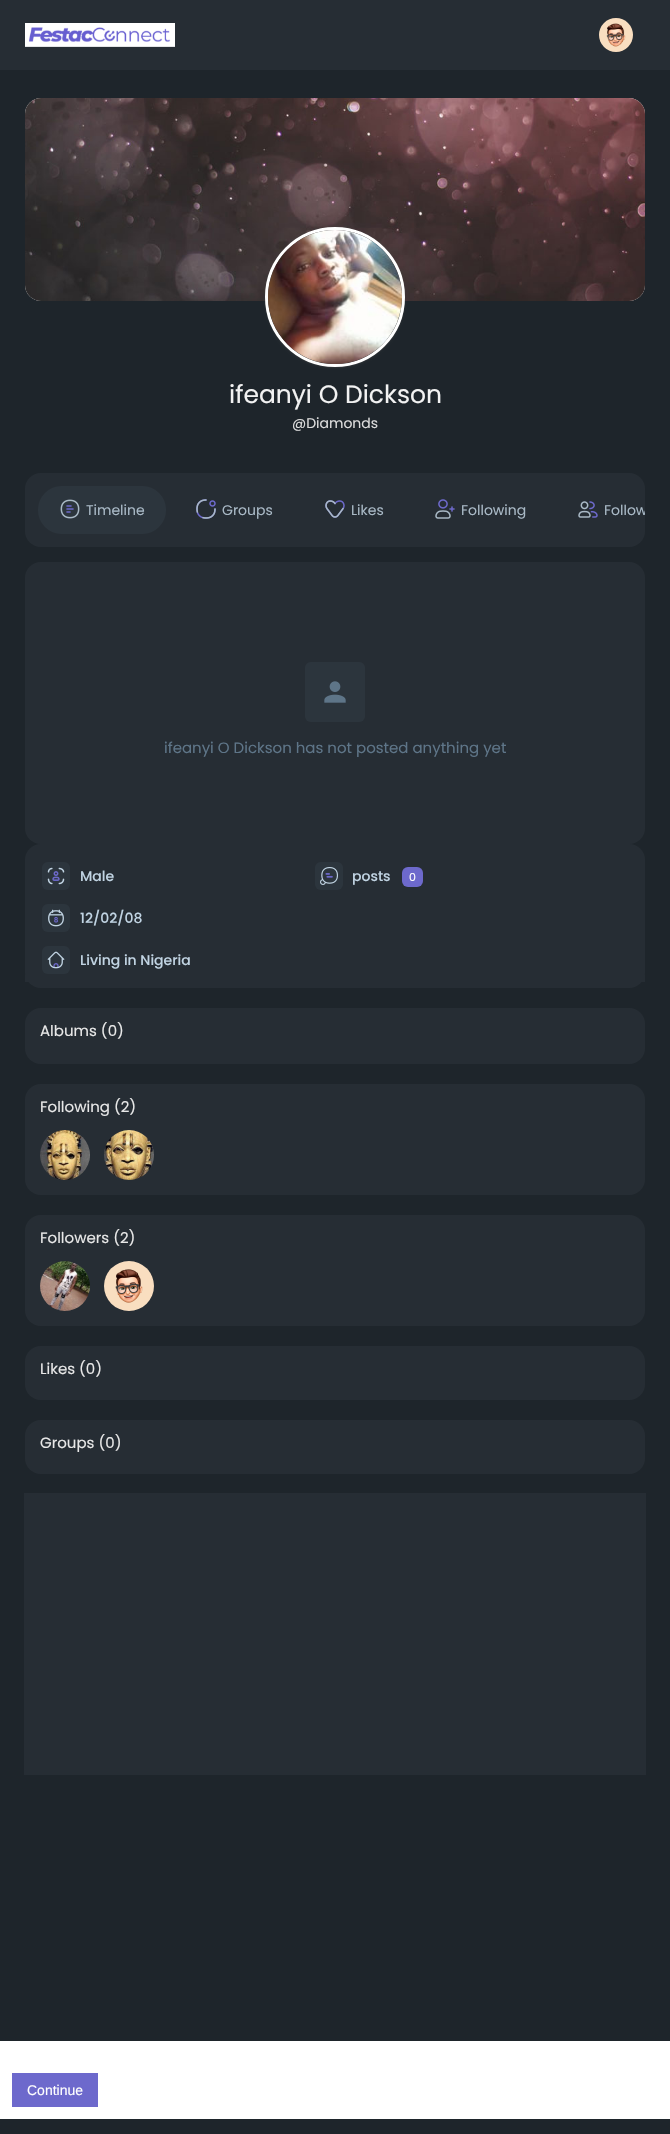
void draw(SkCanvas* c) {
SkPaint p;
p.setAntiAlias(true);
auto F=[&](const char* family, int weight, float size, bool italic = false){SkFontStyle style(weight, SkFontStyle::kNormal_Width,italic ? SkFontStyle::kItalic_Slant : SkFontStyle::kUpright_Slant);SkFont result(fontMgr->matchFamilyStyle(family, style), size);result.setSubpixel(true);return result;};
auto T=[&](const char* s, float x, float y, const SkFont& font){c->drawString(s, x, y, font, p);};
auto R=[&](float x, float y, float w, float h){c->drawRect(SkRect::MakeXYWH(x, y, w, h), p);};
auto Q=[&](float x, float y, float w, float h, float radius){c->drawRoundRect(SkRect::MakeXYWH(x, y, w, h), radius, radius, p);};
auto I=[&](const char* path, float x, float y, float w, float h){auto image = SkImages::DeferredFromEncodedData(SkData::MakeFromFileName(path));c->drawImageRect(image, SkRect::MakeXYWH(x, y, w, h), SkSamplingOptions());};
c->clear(0xff1e252b);
p.setColor(0xff262d34);
R(0,0,670,70);
I("1.png",25,23,150,24);
I("2.png",599,18,34,34);
p.setColor(0xffffffff);
Q(25,98,620,203,16);
I("3.png",25,98,620,203);
p.setColor(0x6b444444);
p.setMaskFilter(SkMaskFilter::MakeBlur(kNormal_SkBlurStyle, 1));
c->drawRoundRect(SkRect::MakeXYWH(265,228,140,140),70,70,p);
p.setMaskFilter(nullptr);
p.setStroke(true);
p.setStrokeWidth(3);
p.setColor(0xffffffff);
c->drawCircle(335,297,68.5,p);
I("4.png",268,230,134,134);
auto f1 = F("Poppins",400,25);
p.setStroke(false);
p.setColor(0xfff2f2f2);
T("ifeanyi O Dickson",229,403,f1);
auto f2 = F("Poppins",400,14);
p.setColor(0xffdddddd);
T("@Diamonds",292,428,f2);
p.setColor(0xff262d34);
Q(25,473,620,74,16);
p.setColor(0xff2c353d);
Q(38,486,128,48,24);
I("5.png",60,499,20,20);
p.setColor(0xffa9b9c6);
T("Timeline",86,515,f2);
I("6.png",196,499,20,20);
T("Groups",222,515,f2);
I("7.png",325,500,20,18);
T("Likes",351,515,f2);
I("8.png",435,499,20,20);
T("Following",461,515,f2);
I("9.png",578,501,20,17);
c->save();
c->clipRect(SkRect::MakeXYWH(25,473,620,74));
T("Follow",604,515,f2);
c->restore();
p.setColor(0xff262d34);
Q(25,562,620,282,16);
p.setColor(0xff2c353d);
Q(305,662,60,60,6);
I("10.png",324,681,22,22);
auto f3 = F("Poppins",400,15);
p.setColor(0xff5e7588);
T("ifeanyi O Dickson has not posted anything yet",164,753,f3);
p.setColor(0xff262d34);
Q(25,844,620,144,16);
p.setColor(0xff2c353d);
Q(42,862,28,28,6);
I("11.png",47,867,18,18);
auto f4 = F("Poppins",500,14);
p.setColor(0xffc1d4e3);
T("Male",80,881,f4);
p.setColor(0xff2c353d);
Q(315,862,28,28,6);
I("12.png",320,867,18,18);
p.setColor(0xffc1d4e3);
T("posts",352,881,f4);
p.setColor(0xff6d69cc);
Q(402,867,21,20,6);
auto f5 = F("Poppins",400,11);
p.setColor(0xffffffff);
T("0",409,881,f5);
p.setColor(0xff2c353d);
Q(42,904,28,28,6);
I("13.png",48,909,16,18);
p.setColor(0xffc1d4e3);
T("12/02/08",80,923,f4);
p.setColor(0xff262d34);
R(25,975,620,7);
p.setColor(0xff2c353d);
Q(42,946,28,28,6);
I("14.png",47,951,18,18);
p.setColor(0xffc1d4e3);
T("Living in Nigeria",80,965,f4);
p.setColor(0xff262d34);
Q(25,1008,620,56,16);
p.setColor(0xffe8e8e8);
T("Albums (0)",40,1036,f3);
p.setColor(0xff262d34);
Q(25,1084,620,111,16);
p.setColor(0xffe8e8e8);
T("Following (2)",40,1112,f3);
I("15.png",40,1130,50,50);
I("16.png",104,1130,50,50);
p.setColor(0xff262d34);
Q(25,1215,620,111,16);
p.setColor(0xffe8e8e8);
T("Followers (2)",40,1243,f3);
I("17.png",40,1261,50,50);
I("18.png",104,1261,50,50);
p.setColor(0xff262d34);
Q(25,1346,620,54,16);
p.setColor(0xffe8e8e8);
T("Likes (0)",40,1374,f3);
p.setColor(0xff262d34);
Q(25,1420,620,54,16);
p.setColor(0xffe8e8e8);
T("Groups (0)",40,1448,f3);
p.setStroke(true);
p.setStrokeWidth(1);
p.setColor(0xff262d34);
c->drawRect(SkRect::MakeXYWH(24.5,1493.5,621,281),p);
p.setStroke(false);
R(25,1494,620,280);
p.setColor(0xffffffff);
R(0,2041,670,78);
p.setColor(0xff6d69cc);
R(12,2073,86,34);
auto f6 = F("Liberation Sans",400,14);
p.setColor(0xffffffff);
T("Continue",27,2095,f6);
}
